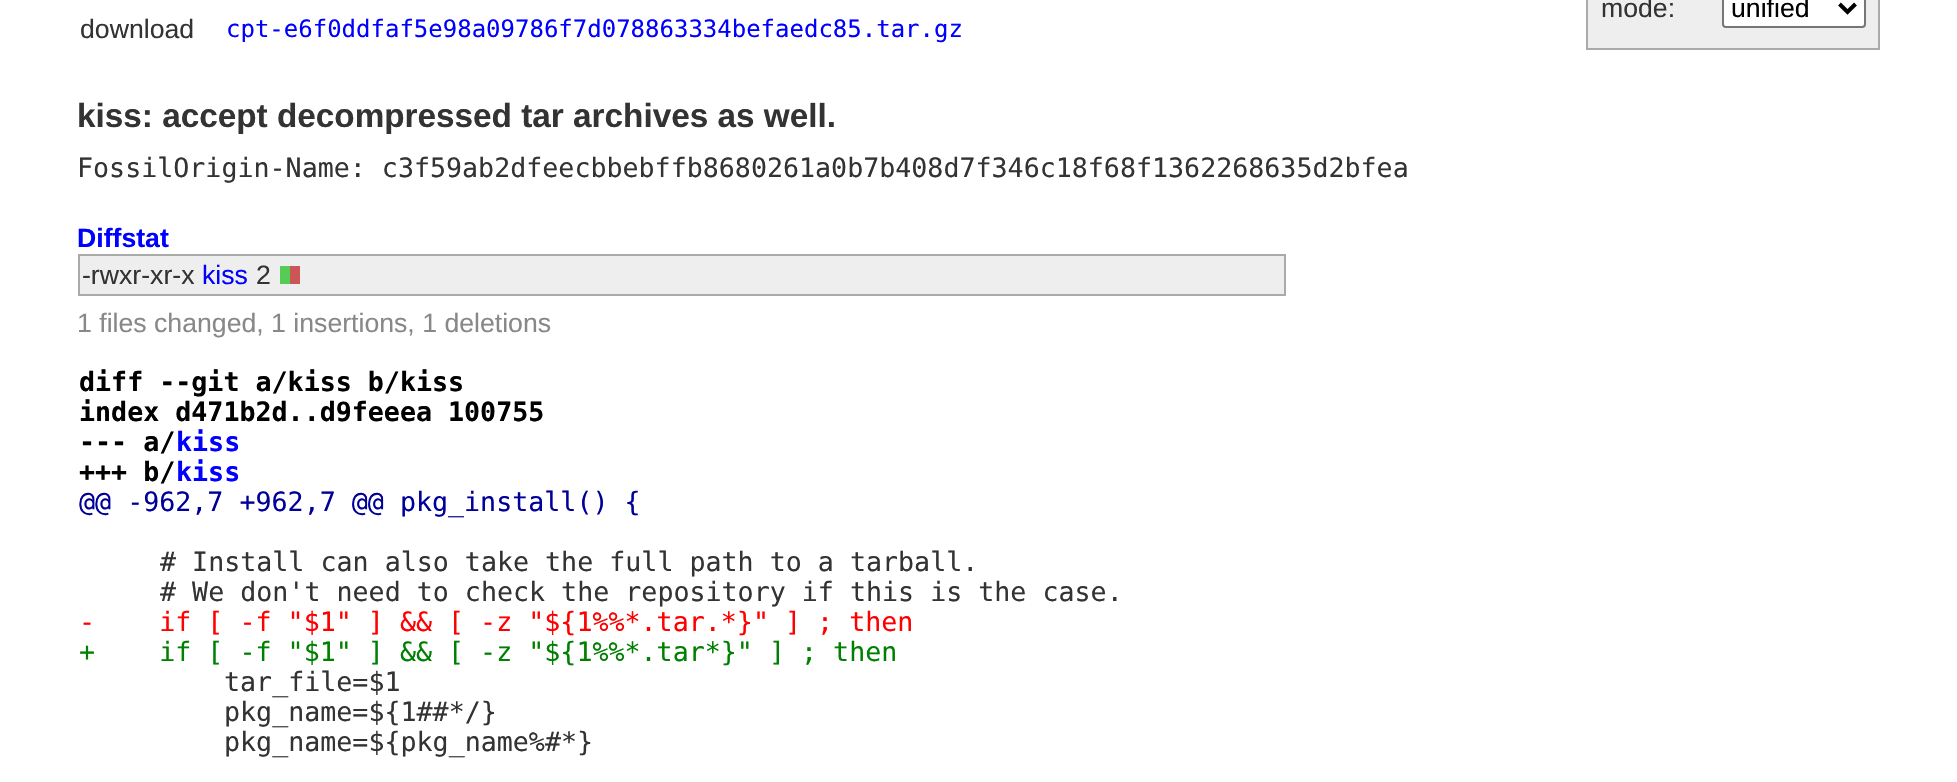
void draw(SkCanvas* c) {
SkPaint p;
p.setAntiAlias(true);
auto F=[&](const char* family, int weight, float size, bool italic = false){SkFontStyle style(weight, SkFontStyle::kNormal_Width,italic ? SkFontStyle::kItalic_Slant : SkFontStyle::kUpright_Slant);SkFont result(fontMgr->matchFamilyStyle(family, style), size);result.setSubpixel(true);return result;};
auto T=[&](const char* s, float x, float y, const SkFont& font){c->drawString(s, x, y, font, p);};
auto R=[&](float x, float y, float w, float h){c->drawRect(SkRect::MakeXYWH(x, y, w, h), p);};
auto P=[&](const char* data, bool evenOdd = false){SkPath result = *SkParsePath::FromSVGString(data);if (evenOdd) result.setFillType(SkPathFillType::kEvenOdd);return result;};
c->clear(0xffffffff);
p.setColor(0xffeeeeee);
R(1588,0,290,48);
p.setColor(0xffaaaaaa);
R(1878,0,2,50);
R(1586,48,294,2);
R(1586,0,2,50);
auto f1 = F("Liberation Sans",400,26.65);
p.setColor(0xff333333);
T("mode:",1601,17,f1);
p.setColor(0xffffffff);
c->drawRoundRect(SkRect::MakeXYWH(1723,-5,142,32),3,3,p);
p.setStroke(true);
p.setStrokeWidth(2);
p.setColor(0xff767676);
c->drawRoundRect(SkRect::MakeXYWH(1723,-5,142,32),3,3,p);
p.setStrokeWidth(4);
p.setColor(0xff000000);
c->drawPath(P("M1839.5 4l8 8l8-8"),p);
p.setStroke(false);
T("unified",1731,17,f1);
p.setColor(0xff333333);
T("download",80,38,f1);
auto f2 = F("DejaVu Sans Mono",400,24);
p.setColor(0xff0000ff);
T("cpt-e6f0ddfaf5e98a09786f7d078863334befaedc85.tar.gz",226,37,f2);
auto f3 = F("Liberation Sans",700,33.3);
p.setColor(0xff333333);
T("kiss: accept decompressed tar archives as well.",77,127,f3);
auto f4 = F("DejaVu Sans Mono",400,26.65);
T("FossilOrigin-Name: c3f59ab2dfeecbbebffb8680261a0b7b408d7f346c18f68f1362268635d2bfea",77,177,f4);
auto f5 = F("Liberation Sans",700,26.65);
p.setColor(0xff0000ff);
T("Diffstat",77,247,f5);
p.setColor(0xffeeeeee);
R(80,256,1204,38);
p.setColor(0xffaaaaaa);
R(78,254,1208,2);
R(1284,254,2,42);
R(78,294,1208,2);
R(78,254,2,42);
p.setColor(0xff333333);
T("-rwxr-xr-x",82,284,f1);
p.setColor(0xff0000ff);
T("kiss",202,284,f1);
p.setColor(0xff333333);
T("2",256,284,f1);
p.setColor(0xff55cc55);
R(280,266,10,18);
p.setColor(0xffcc5555);
R(290,266,10,18);
p.setColor(0xff888888);
T("1 files changed, 1 insertions, 1 deletions",77,332,f1);
auto f6 = F("DejaVu Sans Mono",700,26.65);
p.setColor(0xff000000);
T("diff --git a/kiss b/kiss",79,391,f6);
T("index d471b2d..d9feeea 100755",79,421,f6);
T("--- a/",79,451,f6);
p.setColor(0xff0000ff);
T("kiss",176,451,f6);
p.setColor(0xff000000);
T("+++ b/",79,481,f6);
p.setColor(0xff0000ff);
T("kiss",176,481,f6);
p.setColor(0xff000099);
T("@@ -962,7 +962,7 @@ pkg_install() {",79,511,f4);
p.setColor(0xff333333);
T("# Install can also take the full path to a tarball.",160,571,f4);
T("# We don't need to check the repository if this is the case.",160,601,f4);
p.setColor(0xffff0000);
T("-    if [ -f \"$1\" ] && [ -z \"${1%%*.tar.*}\" ] ; then",79,631,f4);
p.setColor(0xff008000);
T("+    if [ -f \"$1\" ] && [ -z \"${1%%*.tar*}\" ] ; then",79,661,f4);
p.setColor(0xff333333);
T("tar_file=$1",224,691,f4);
T("pkg_name=${1##*/}",224,721,f4);
T("pkg_name=${pkg_name%#*}",224,751,f4);
}
